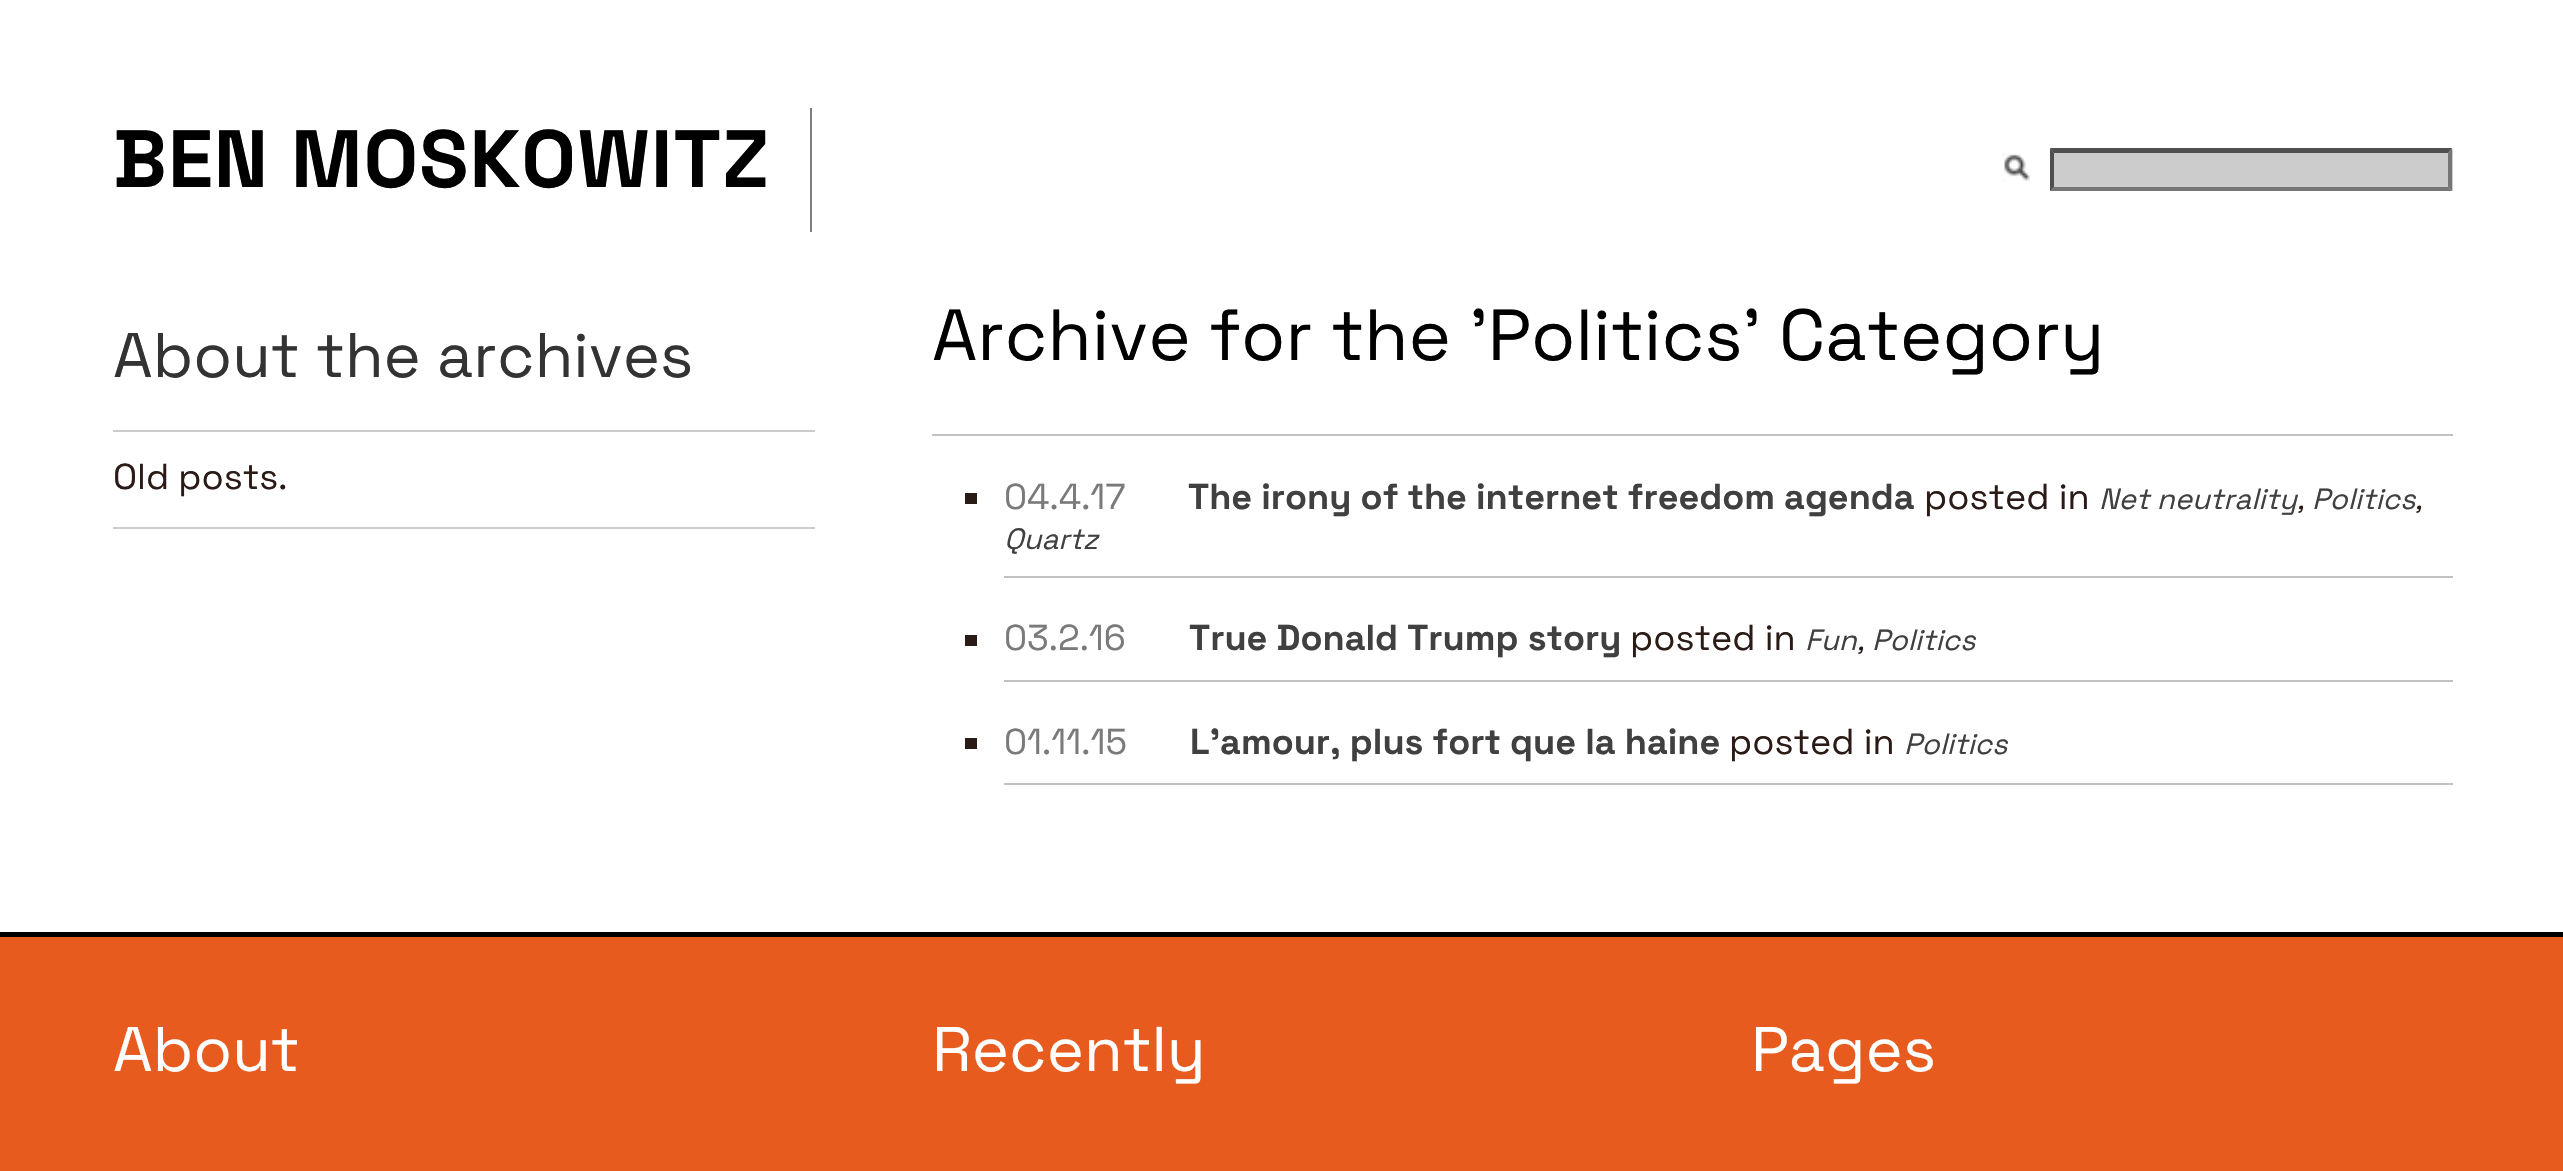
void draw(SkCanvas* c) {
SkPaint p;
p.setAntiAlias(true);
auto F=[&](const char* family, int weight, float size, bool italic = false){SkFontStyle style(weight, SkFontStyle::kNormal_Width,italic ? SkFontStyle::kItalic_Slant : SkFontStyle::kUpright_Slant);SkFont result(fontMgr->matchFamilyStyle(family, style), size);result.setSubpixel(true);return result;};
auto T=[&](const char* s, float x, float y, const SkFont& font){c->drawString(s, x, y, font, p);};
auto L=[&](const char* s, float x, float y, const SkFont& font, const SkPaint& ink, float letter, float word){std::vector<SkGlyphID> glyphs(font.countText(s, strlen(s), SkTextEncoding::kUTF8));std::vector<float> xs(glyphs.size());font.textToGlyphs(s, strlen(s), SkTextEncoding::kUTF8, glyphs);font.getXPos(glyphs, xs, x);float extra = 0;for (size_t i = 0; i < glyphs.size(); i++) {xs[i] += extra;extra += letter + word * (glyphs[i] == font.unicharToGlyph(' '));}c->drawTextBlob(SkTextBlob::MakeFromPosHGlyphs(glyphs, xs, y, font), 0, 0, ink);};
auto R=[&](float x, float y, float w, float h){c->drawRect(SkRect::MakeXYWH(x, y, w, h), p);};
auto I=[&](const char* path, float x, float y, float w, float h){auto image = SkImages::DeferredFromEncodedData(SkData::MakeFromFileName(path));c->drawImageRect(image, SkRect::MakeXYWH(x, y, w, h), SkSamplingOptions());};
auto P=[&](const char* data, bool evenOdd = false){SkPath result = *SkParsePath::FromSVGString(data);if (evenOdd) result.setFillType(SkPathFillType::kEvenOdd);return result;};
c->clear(0xffffffff);
p.setColor(0xff7f7f7f);
R(810,108,2,124);
auto f1 = F("Space Grotesk",700,81);
p.setColor(0xff000000);
L("BEN MOSKOWITZ",113,187,f1,p,1.1,0);
I("1.png",2002,153,28,29);
p.setColor(0xffcccccc);
R(2050,149,403,42);
p.setColor(0xff4f4f4f);
c->drawPath(P("M2050 148h402l-4 5h-394z"),p);
p.setColor(0xff767676);
c->drawPath(P("M2452 148v43l-4-4v-34z"),p);
c->drawPath(P("M2452 191h-402l4-4h394z"),p);
p.setColor(0xff4f4f4f);
c->drawPath(P("M2050 191v-43l4 5v34z"),p);
auto f2 = F("Space Grotesk",400,63);
p.setColor(0xff333333);
T("About the archives",113,377,f2);
p.setColor(0xffcccccc);
R(113,430,702,2);
R(113,527,702,2);
auto f3 = F("Space Grotesk",400,36);
p.setColor(0xff2b1b17);
T("Old posts.",113,489,f3);
auto f4 = F("Space Grotesk",400,72);
p.setColor(0xff000000);
T("Archive for the 'Politics' Category",932,360,f4);
p.setColor(0xffc2c2c2);
R(932,434,1521,2);
R(1004,576,1449,2);
p.setColor(0xff2b1b17);
R(965,493,12,11);
p.setColor(0xff7a7a7a);
T("04.4.17",1004,509,f3);
auto f5 = F("Space Grotesk",700,36);
p.setColor(0xff404040);
T("The irony of the internet freedom agenda",1188,509,f5);
p.setColor(0xff2b1b17);
T("posted in",1924,509,f3);
auto f6 = F("Space Grotesk",400,29.25,true);
p.setColor(0xff404040);
T("Net neutrality",2099,509,f6);
T("Politics",2312,509,f6);
p.setColor(0xff2b1b17);
T(",",2297,509,f6);
T(",",2415,509,f6);
p.setColor(0xff404040);
T("Quartz",1004,549,f6);
p.setColor(0xffc2c2c2);
R(1004,680,1449,2);
p.setColor(0xff2b1b17);
R(965,635,12,11);
p.setColor(0xff7a7a7a);
T("03.2.16",1004,650,f3);
p.setColor(0xff404040);
T("True Donald Trump story",1189,650,f5);
p.setColor(0xff2b1b17);
T("posted in",1630,650,f3);
p.setColor(0xff404040);
T("Fun",1805,650,f6);
T("Politics",1872,650,f6);
p.setColor(0xff2b1b17);
T(",",1857,650,f6);
p.setColor(0xffc2c2c2);
R(1004,783,1449,2);
p.setColor(0xff2b1b17);
R(965,738,12,11);
p.setColor(0xff7a7a7a);
T("01.11.15",1004,754,f3);
p.setColor(0xff404040);
T("L'amour, plus fort que la haine",1190,754,f5);
p.setColor(0xff2b1b17);
T("posted in",1729,754,f3);
p.setColor(0xff404040);
T("Politics",1904,754,f6);
p.setColor(0xffe75b1e);
R(0,937,2563,234);
p.setColor(0xff000000);
R(0,932,2563,5);
p.setColor(0xffffffff);
T("About",113,1071,f2);
T("Recently",932,1071,f2);
T("Pages",1751,1071,f2);
}
